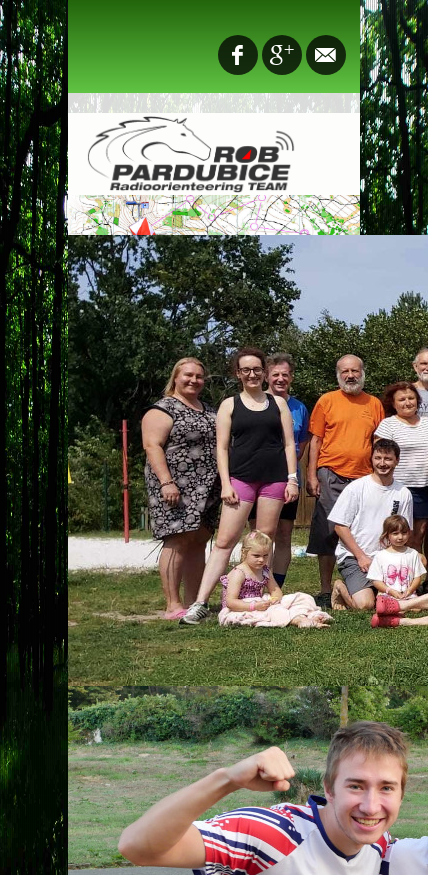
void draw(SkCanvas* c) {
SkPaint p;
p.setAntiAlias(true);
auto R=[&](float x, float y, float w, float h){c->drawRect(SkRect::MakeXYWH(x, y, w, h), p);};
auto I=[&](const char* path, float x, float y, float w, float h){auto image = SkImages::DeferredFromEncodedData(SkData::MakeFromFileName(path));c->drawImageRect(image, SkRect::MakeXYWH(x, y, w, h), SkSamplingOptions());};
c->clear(0xffffffff);
I("1.png",0,0,428,875);
p.setColor(0xd9ffffff);
R(68,93,292,20);
{
const SkColor colors[] = {0xff22640b,0xff60c443};
const float stops[] = {0,1};
const SkPoint ends[] = {{68,0}, {68,93}};
p.setShader(SkGradientShader::MakeLinear(ends, colors, stops, 2, SkTileMode::kClamp));
p.setAlpha(255);
}
R(68,0,292,93);
p.setShader(nullptr);
p.setColor(0xbf000000);
c->drawCircle(238,55,20,p);
I("2.png",232,45,11,20);
c->drawCircle(282,55,20,p);
I("3.png",270,45,24,20);
c->drawCircle(326,55,20,p);
I("4.png",315,48,21,14);
p.setColor(0xfffdfdfc);
R(68,113,292,122);
I("5.png",87,116,208,77);
I("6.png",68,195,292,40);
I("7.png",68,235,360,451);
I("8.png",68,686,360,189);
}
